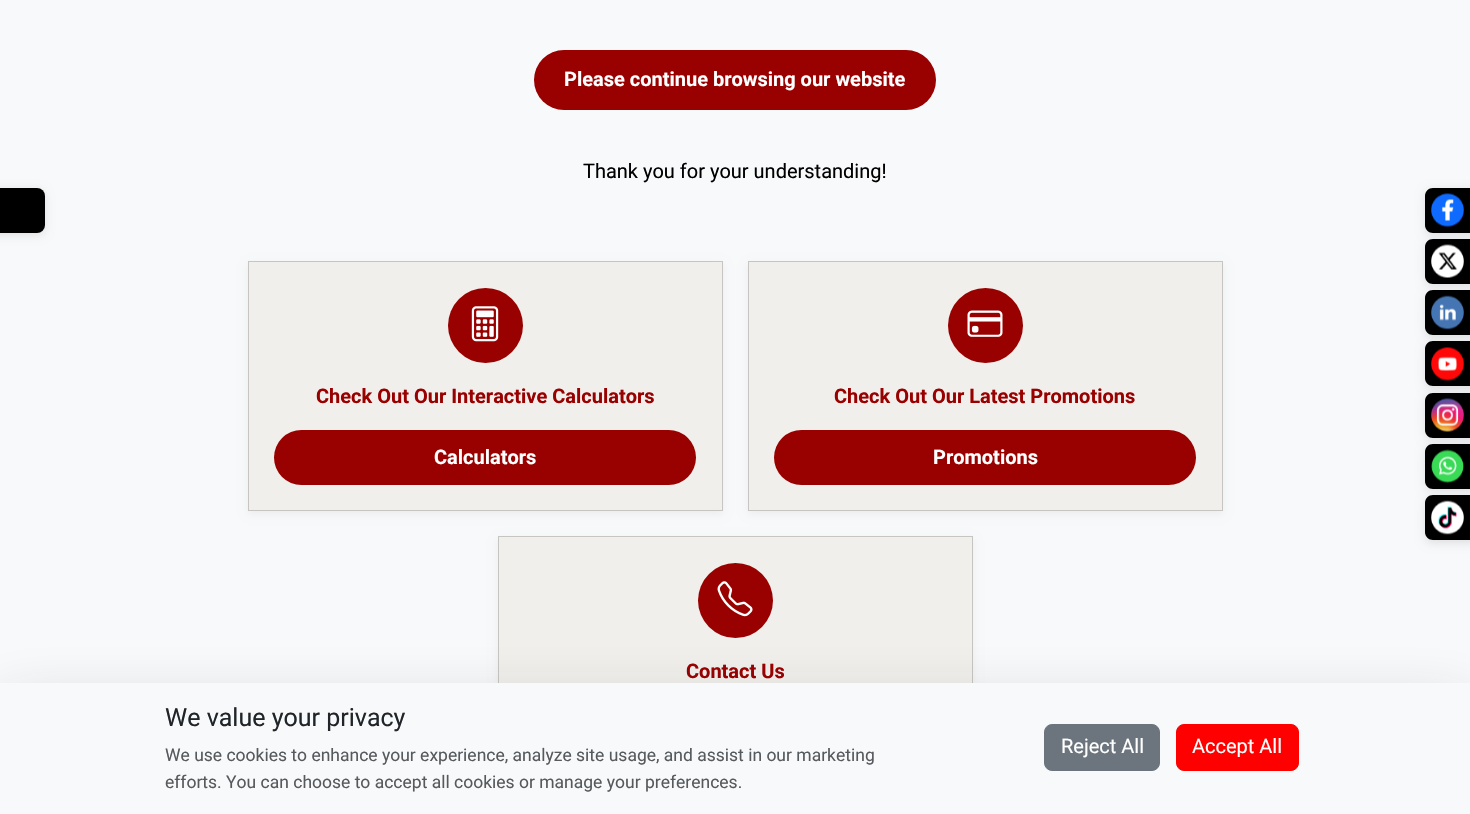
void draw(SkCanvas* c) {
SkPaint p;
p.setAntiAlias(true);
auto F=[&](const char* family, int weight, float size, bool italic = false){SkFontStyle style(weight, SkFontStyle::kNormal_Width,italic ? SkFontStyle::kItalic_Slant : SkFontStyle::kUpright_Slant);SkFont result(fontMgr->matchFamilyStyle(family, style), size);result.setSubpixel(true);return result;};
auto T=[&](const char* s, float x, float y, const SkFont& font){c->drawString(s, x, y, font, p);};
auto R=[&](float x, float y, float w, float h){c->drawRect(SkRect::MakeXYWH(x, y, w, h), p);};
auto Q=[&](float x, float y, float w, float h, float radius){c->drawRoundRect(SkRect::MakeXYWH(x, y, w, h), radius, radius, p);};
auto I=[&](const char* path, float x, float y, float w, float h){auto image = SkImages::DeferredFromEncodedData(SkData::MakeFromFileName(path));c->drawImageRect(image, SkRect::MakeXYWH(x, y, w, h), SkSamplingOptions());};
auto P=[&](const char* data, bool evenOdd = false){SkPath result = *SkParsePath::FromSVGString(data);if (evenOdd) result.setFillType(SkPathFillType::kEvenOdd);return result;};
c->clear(0xfff8f9fa);
p.setColor(0x1a000000);
p.setMaskFilter(SkMaskFilter::MakeBlur(kNormal_SkBlurStyle, 5));
c->drawRoundRect(SkRect::MakeXYWH(-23,190,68,45),8,8,p);
p.setMaskFilter(nullptr);
p.setColor(0xff000000);
Q(-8,188,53,45,8);
p.setColor(0xff990000);
Q(534,50,402,60,30);
auto f1 = F("Roboto",700,20);
p.setColor(0xffffffff);
T("Please continue browsing our website",564,86,f1);
auto f2 = F("Roboto",400,20);
p.setColor(0xff000000);
T("Thank you for your understanding!",583,178,f2);
p.setColor(0x0d000000);
p.setMaskFilter(SkMaskFilter::MakeBlur(kNormal_SkBlurStyle, 4));
c->drawRect(SkRect::MakeXYWH(248,264,475,250),p);
p.setMaskFilter(nullptr);
p.setColor(0xfff1efec);
c->drawRect(SkRect::MakeXYWH(248.5,261.5,474,249),p);
p.setStroke(true);
p.setStrokeWidth(1);
p.setColor(0xffc7c5c2);
c->drawRect(SkRect::MakeXYWH(248.5,261.5,474,249),p);
p.setStroke(false);
p.setColor(0xff990000);
c->drawCircle(485.5,325.5,37.5,p);
I("1.png",471,306,28,36);
T("Check Out Our Interactive Calculators",316,403,f1);
Q(274,430,422,55,27.5);
p.setColor(0xffffffff);
T("Calculators",434,464,f1);
p.setColor(0x0d000000);
p.setMaskFilter(SkMaskFilter::MakeBlur(kNormal_SkBlurStyle, 4));
c->drawRect(SkRect::MakeXYWH(748,264,475,250),p);
p.setMaskFilter(nullptr);
p.setColor(0xfff1efec);
c->drawRect(SkRect::MakeXYWH(748.5,261.5,474,249),p);
p.setStroke(true);
p.setColor(0xffc7c5c2);
c->drawRect(SkRect::MakeXYWH(748.5,261.5,474,249),p);
p.setStroke(false);
p.setColor(0xff990000);
c->drawCircle(985.5,325.5,37.5,p);
I("2.png",967,310,36,27);
T("Check Out Our Latest Promotions",834,403,f1);
Q(774,430,422,55,27.5);
p.setColor(0xffffffff);
T("Promotions",933,464,f1);
p.setColor(0x0d000000);
p.setMaskFilter(SkMaskFilter::MakeBlur(kNormal_SkBlurStyle, 4));
c->drawRect(SkRect::MakeXYWH(498,539,475,250),p);
p.setMaskFilter(nullptr);
p.setColor(0xfff1efec);
R(499,537,473,146);
p.setStroke(true);
p.setColor(0xffc7c5c2);
c->drawRect(SkRect::MakeXYWH(498.5,536.5,474,249),p);
p.setStroke(false);
p.setColor(0xff990000);
c->drawCircle(735.5,600.5,37.5,p);
I("3.png",717,581,36,36);
T("Contact Us",686,678,f1);
p.setColor(0x1a000000);
p.setMaskFilter(SkMaskFilter::MakeBlur(kNormal_SkBlurStyle, 5));
c->drawRoundRect(SkRect::MakeXYWH(1425,190,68,45),8,8,p);
p.setMaskFilter(nullptr);
p.setColor(0xff000000);
c->drawPath(P("M1433 188h37v45h-37c-4.5 0-8-3.5-8-8v-29c0-4.5 3.5-8 8-8z"),p);
I("4.png",1431,193,33,34);
p.setColor(0x1a000000);
p.setMaskFilter(SkMaskFilter::MakeBlur(kNormal_SkBlurStyle, 5));
c->drawRoundRect(SkRect::MakeXYWH(1425,241,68,45),8,8,p);
p.setMaskFilter(nullptr);
p.setColor(0xff000000);
c->drawPath(P("M1433 239h37v45h-37c-4.5 0-8-3.5-8-8v-29c0-4.5 3.5-8 8-8z"),p);
I("5.png",1431,244,33,34);
p.setColor(0x1a000000);
p.setMaskFilter(SkMaskFilter::MakeBlur(kNormal_SkBlurStyle, 5));
c->drawRoundRect(SkRect::MakeXYWH(1425,293,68,45),8,8,p);
p.setMaskFilter(nullptr);
p.setColor(0xff000000);
c->drawPath(P("M1433 290h37v45h-37c-4.5 0-8-3.5-8-8v-29c0-4.5 3.5-8 8-8z"),p);
I("6.png",1431,295,33,35);
p.setColor(0x1a000000);
p.setMaskFilter(SkMaskFilter::MakeBlur(kNormal_SkBlurStyle, 5));
c->drawRoundRect(SkRect::MakeXYWH(1425,344,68,45),8,8,p);
p.setMaskFilter(nullptr);
p.setColor(0xff000000);
c->drawPath(P("M1433 341h37v45h-37c-4.5 0-8-3.5-8-8v-29c0-4.5 3.5-8 8-8z"),p);
I("7.png",1431,347,33,34);
p.setColor(0x1a000000);
p.setMaskFilter(SkMaskFilter::MakeBlur(kNormal_SkBlurStyle, 5));
c->drawRoundRect(SkRect::MakeXYWH(1425,395,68,45),8,8,p);
p.setMaskFilter(nullptr);
p.setColor(0xff000000);
c->drawPath(P("M1433 393h37v45h-37c-4.5 0-8-3.5-8-8v-29c0-4.5 3.5-8 8-8z"),p);
I("8.png",1431,398,33,34);
p.setColor(0x1a000000);
p.setMaskFilter(SkMaskFilter::MakeBlur(kNormal_SkBlurStyle, 5));
c->drawRoundRect(SkRect::MakeXYWH(1425,446,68,45),8,8,p);
p.setMaskFilter(nullptr);
p.setColor(0xff000000);
c->drawPath(P("M1433 444h37v45h-37c-4.5 0-8-3.5-8-8v-29c0-4.5 3.5-8 8-8z"),p);
I("9.png",1431,449,33,34);
p.setColor(0x1a000000);
p.setMaskFilter(SkMaskFilter::MakeBlur(kNormal_SkBlurStyle, 5));
c->drawRoundRect(SkRect::MakeXYWH(1425,498,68,45),8,8,p);
p.setMaskFilter(nullptr);
p.setColor(0xff000000);
c->drawPath(P("M1433 495h37v45h-37c-4.5 0-8-3.5-8-8v-29c0-4.5 3.5-8 8-8z"),p);
I("10.png",1431,500,33,35);
p.setColor(0x2e212529);
p.setMaskFilter(SkMaskFilter::MakeBlur(kNormal_SkBlurStyle, 30));
c->drawRect(SkRect::MakeXYWH(0,703,1470,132),p);
p.setMaskFilter(nullptr);
p.setColor(0xfff8f9fa);
R(0,683,1470,131);
auto f3 = F("Roboto",400,25);
p.setColor(0xff212529);
T("We value your privacy",165,726,f3);
auto f4 = F("Roboto",400,17.5);
p.setColor(0xff575a5d);
T("We use cookies to enhance your experience, analyze site usage, and assist in our marketing",165,761,f4);
T("efforts. You can choose to accept all cookies or manage your preferences.",165,788,f4);
p.setColor(0xff6c757d);
c->drawRoundRect(SkRect::MakeXYWH(1044.5,724.5,115,46),7.5,7.5,p);
p.setStroke(true);
c->drawRoundRect(SkRect::MakeXYWH(1044.5,724.5,115,46),7.5,7.5,p);
p.setStroke(false);
p.setColor(0xffffffff);
T("Reject All",1061,753,f2);
p.setColor(0xffff0000);
c->drawRoundRect(SkRect::MakeXYWH(1176.5,724.5,122,46),7.5,7.5,p);
p.setStroke(true);
c->drawRoundRect(SkRect::MakeXYWH(1176.5,724.5,122,46),7.5,7.5,p);
p.setStroke(false);
p.setColor(0xffffffff);
T("Accept All",1192,753,f2);
}
